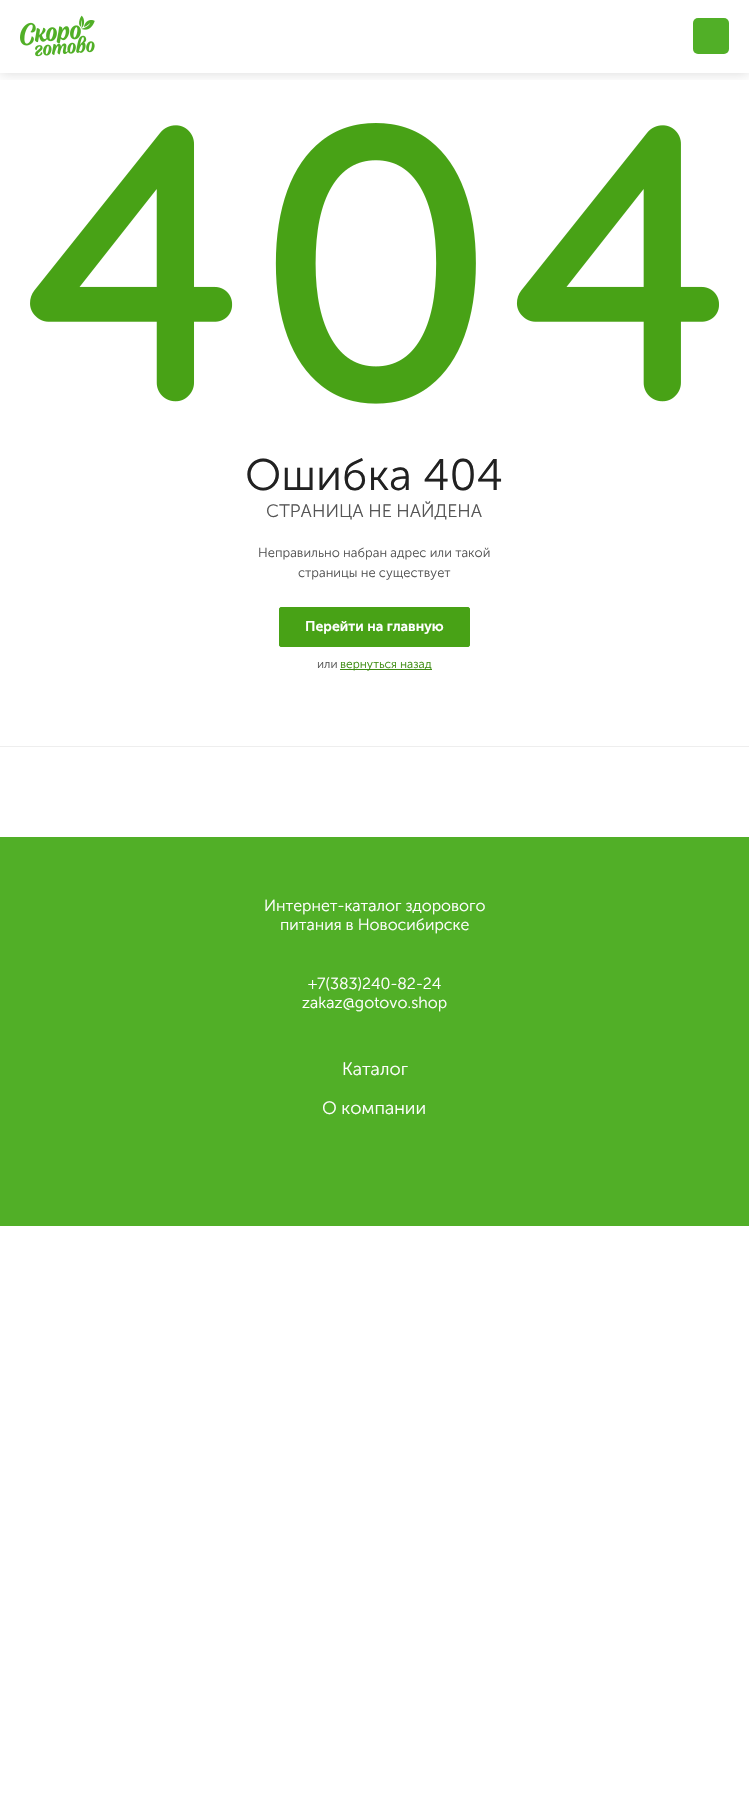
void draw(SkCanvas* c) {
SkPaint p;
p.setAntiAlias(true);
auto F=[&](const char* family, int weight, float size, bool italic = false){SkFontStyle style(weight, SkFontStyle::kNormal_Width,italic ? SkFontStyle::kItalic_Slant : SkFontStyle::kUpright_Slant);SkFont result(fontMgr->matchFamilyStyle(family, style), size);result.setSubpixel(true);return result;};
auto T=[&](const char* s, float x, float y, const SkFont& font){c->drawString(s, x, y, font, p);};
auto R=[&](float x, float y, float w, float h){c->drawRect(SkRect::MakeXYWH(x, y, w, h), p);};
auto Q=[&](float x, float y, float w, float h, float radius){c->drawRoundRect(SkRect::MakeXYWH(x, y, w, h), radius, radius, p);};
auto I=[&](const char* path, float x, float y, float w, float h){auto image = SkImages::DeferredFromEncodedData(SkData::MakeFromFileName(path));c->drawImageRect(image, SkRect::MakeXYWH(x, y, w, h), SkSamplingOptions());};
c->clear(0xffffffff);
c->save();
c->clipRect(SkRect::MakeXYWH(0,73,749,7));
p.setColor(0x26000000);
p.setMaskFilter(SkMaskFilter::MakeBlur(kNormal_SkBlurStyle, 6));
c->drawRect(SkRect::MakeXYWH(0,-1,749,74),p);
p.setMaskFilter(nullptr);
c->restore();
I("1.png",20,15,75,42);
p.setColor(0xff51af27);
Q(693,18,36,36,5);
I("2.png",30,123,689,281);
auto f1 = F("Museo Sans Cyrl",300,44);
p.setColor(0xff212121);
T("Ошибка 404",245,490,f1);
auto f2 = F("Museo Sans Cyrl",300,18);
p.setColor(0xff555555);
T("СТРАНИЦА НЕ НАЙДЕНА",266,517,f2);
auto f3 = F("Museo Sans Cyrl",300,13);
T("Неправильно набран адрес или такой",258,557,f3);
T("страницы не существует",298,577,f3);
p.setColor(0xff48a216);
c->drawRoundRect(SkRect::MakeXYWH(279.5,607.5,190,39),1.5,1.5,p);
p.setStroke(true);
p.setStrokeWidth(1);
c->drawRoundRect(SkRect::MakeXYWH(279.5,607.5,190,39),1.5,1.5,p);
auto f4 = F("Museo Sans Cyrl",600,14);
p.setStroke(false);
p.setColor(0xffffffff);
T("Перейти на главную",305,631,f4);
auto f5 = F("Museo Sans Cyrl",300,12);
p.setColor(0xff555555);
T("или",317,668,f5);
p.setColor(0xff3e8c12);
R(340,669,92,1);
T("вернуться назад",340,668,f5);
p.setColor(0xffeeeeee);
R(0,746,749,1);
p.setColor(0xff51af27);
R(0,837,749,389);
auto f6 = F("Museo Sans Cyrl",300,16);
p.setColor(0xffffffff);
T("Интернет-каталог здорового",264,911,f6);
T("питания в Новосибирске",280,930,f6);
T("+7(383)240-82-24",308,989,f6);
T("zakaz@gotovo.shop",302,1008,f6);
T("Каталог",342,1075,f2);
T("О компании",322,1114,f2);
}
